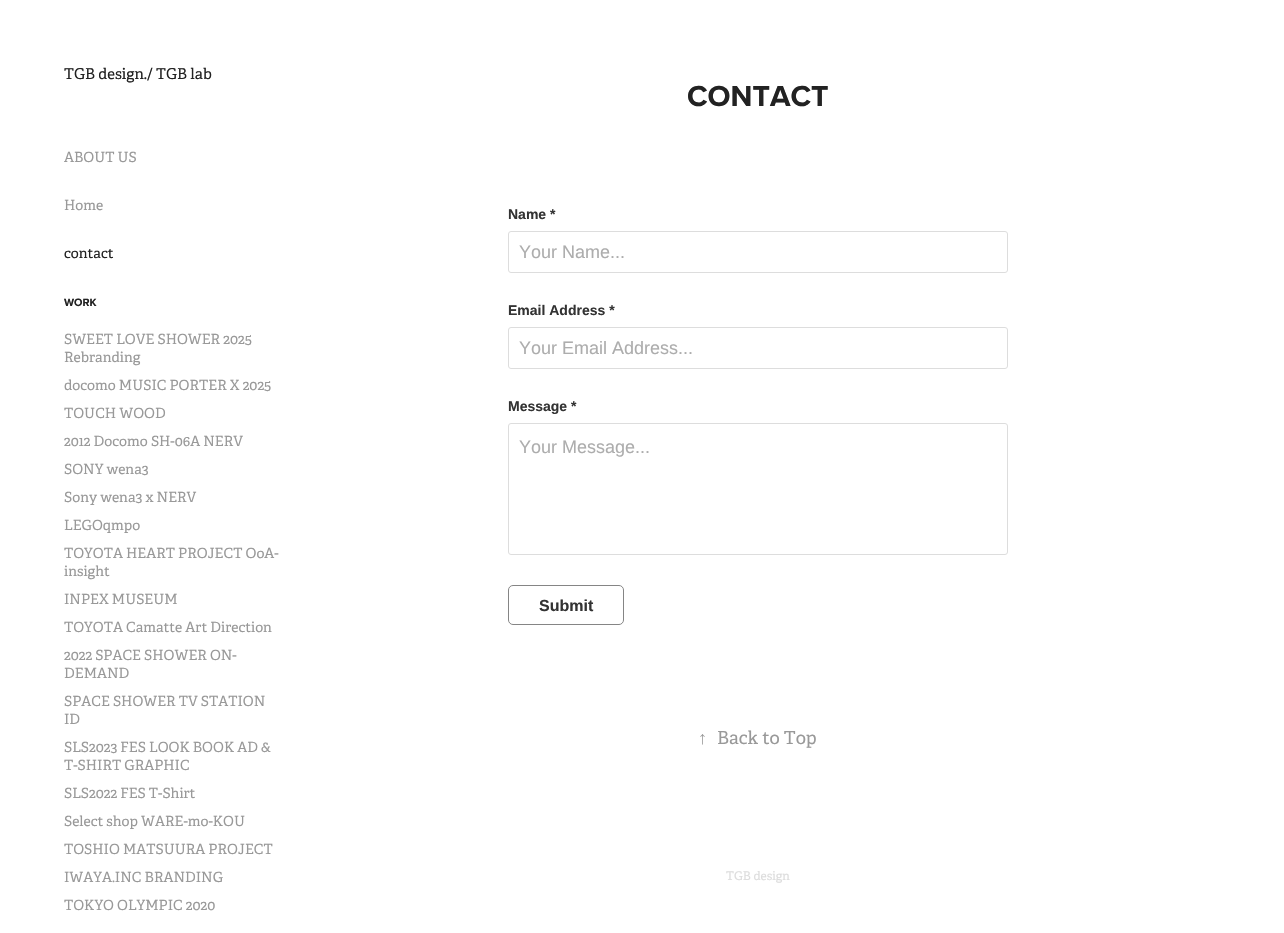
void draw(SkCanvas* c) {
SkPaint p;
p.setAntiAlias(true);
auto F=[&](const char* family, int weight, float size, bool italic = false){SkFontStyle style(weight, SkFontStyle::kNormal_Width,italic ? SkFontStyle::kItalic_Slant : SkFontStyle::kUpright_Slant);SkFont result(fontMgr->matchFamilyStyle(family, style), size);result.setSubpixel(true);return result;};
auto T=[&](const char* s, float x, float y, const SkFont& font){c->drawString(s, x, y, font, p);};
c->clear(0xffffffff);
auto f1 = F("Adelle",400,15);
p.setColor(0xff222222);
T("TGB design./ TGB lab",64,79,f1);
auto f2 = F("Adelle",400,14);
p.setColor(0xff999999);
T("ABOUT US",64,162,f2);
T("Home",64,210,f2);
p.setColor(0xff222222);
T("contact",64,258,f2);
auto f3 = F("Proxima Nova",700,11);
T("WORK",64,306,f3);
p.setColor(0xff999999);
T("SWEET LOVE SHOWER 2025",64,344,f2);
T("Rebranding",64,362,f2);
T("docomo MUSIC PORTER X 2025",64,390,f2);
T("TOUCH WOOD",64,418,f2);
T("2012 Docomo SH-06A NERV",64,446,f2);
T("SONY wena3",64,474,f2);
T("Sony wena3 x NERV",64,502,f2);
T("LEGOqmpo",64,530,f2);
T("TOYOTA HEART PROJECT OoA-",64,558,f2);
T("insight",64,576,f2);
T("INPEX MUSEUM",64,604,f2);
T("TOYOTA Camatte Art Direction",64,632,f2);
T("2022 SPACE SHOWER ON-",64,660,f2);
T("DEMAND",64,678,f2);
T("SPACE SHOWER TV STATION",64,706,f2);
T("ID",64,724,f2);
T("SLS2023 FES LOOK BOOK AD &",64,752,f2);
T("T-SHIRT GRAPHIC",64,770,f2);
T("SLS2022 FES T-Shirt",64,798,f2);
T("Select shop WARE-mo-KOU",64,826,f2);
T("TOSHIO MATSUURA PROJECT",64,854,f2);
T("IWAYA.INC BRANDING",64,882,f2);
T("TOKYO OLYMPIC 2020",64,910,f2);
auto f4 = F("Proxima Nova",700,30);
p.setColor(0xff222222);
T("CONTACT",687,106,f4);
auto f5 = F("Liberation Sans",700,14);
p.setColor(0xff333333);
T("Name *",508,219,f5);
p.setStroke(true);
p.setStrokeWidth(1);
p.setColor(0xffdddddd);
c->drawRoundRect(SkRect::MakeXYWH(508.5,231.5,499,41),2.5,2.5,p);
auto f6 = F("Liberation Sans",400,18);
p.setStroke(false);
p.setColor(0xffadadad);
T("Your Name...",519,258,f6);
p.setColor(0xff333333);
T("Email Address *",508,315,f5);
p.setStroke(true);
p.setColor(0xffdddddd);
c->drawRoundRect(SkRect::MakeXYWH(508.5,327.5,499,41),2.5,2.5,p);
p.setStroke(false);
p.setColor(0xffadadad);
T("Your Email Address...",519,354,f6);
p.setColor(0xff333333);
T("Message *",508,411,f5);
p.setStroke(true);
p.setColor(0xffdddddd);
c->drawRoundRect(SkRect::MakeXYWH(508.5,423.5,499,131),2.5,2.5,p);
p.setStroke(false);
p.setColor(0xffadadad);
T("Your Message...",519,453,f6);
p.setStroke(true);
p.setColor(0xff858585);
c->drawRoundRect(SkRect::MakeXYWH(508.5,585.5,115,39),4.5,4.5,p);
auto f7 = F("Liberation Sans",700,16);
p.setStroke(false);
p.setColor(0xff333333);
T("Submit",539,611,f7);
auto f8 = F("Liberation Serif",400,18);
p.setColor(0xff999999);
T("↑",698,744,f8);
auto f9 = F("Adelle",400,18);
T("Back to Top",717,744,f9);
auto f10 = F("Adelle",400,12);
p.setColor(0xffdddddd);
T("TGB design",726,880,f10);
}
